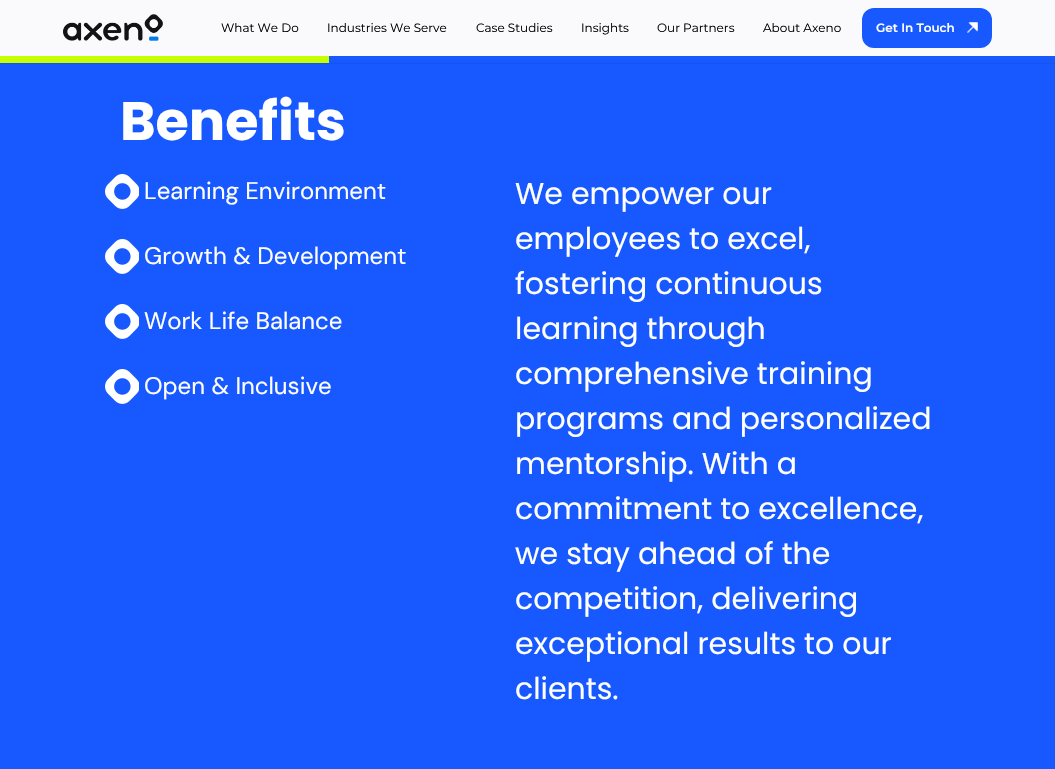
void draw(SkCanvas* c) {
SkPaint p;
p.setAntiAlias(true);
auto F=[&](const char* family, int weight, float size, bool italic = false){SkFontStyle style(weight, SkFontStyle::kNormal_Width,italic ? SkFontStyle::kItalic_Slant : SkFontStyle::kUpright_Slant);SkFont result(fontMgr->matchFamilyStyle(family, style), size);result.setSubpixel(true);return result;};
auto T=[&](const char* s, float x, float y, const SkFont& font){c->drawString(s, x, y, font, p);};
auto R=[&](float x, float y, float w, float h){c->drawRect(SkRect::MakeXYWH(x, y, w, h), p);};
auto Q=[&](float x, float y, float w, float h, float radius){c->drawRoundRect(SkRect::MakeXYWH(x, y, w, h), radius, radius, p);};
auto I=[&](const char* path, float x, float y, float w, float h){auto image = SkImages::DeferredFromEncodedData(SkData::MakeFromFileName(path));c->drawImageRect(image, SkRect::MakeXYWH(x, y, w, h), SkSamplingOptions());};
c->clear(0xff1759ff);
p.setColor(0xfffafafc);
R(0,0,1055,56);
I("1.png",63,14,100,27);
auto f1 = F("Montserrat",400,12);
p.setColor(0xff000000);
T("What We Do",221,32,f1);
T("Industries We Serve",327,32,f1);
T("Case Studies",476,32,f1);
T("Insights",581,32,f1);
T("Our Partners",657,32,f1);
T("About Axeno",763,32,f1);
p.setColor(0xff1759ff);
Q(862,8,130,40,12);
auto f2 = F("Montserrat",600,12);
p.setColor(0xffffffff);
T("Get In Touch",876,32,f2);
I("2.png",967,22,11,11);
p.setColor(0xff1654f0);
R(0,63,1055,1);
p.setColor(0xffc5ff02);
R(0,56,329,7);
auto f3 = F("Poppins",700,54);
p.setColor(0xffffffff);
T("Benefits",120,140,f3);
I("3.png",105,174,34,35);
auto f4 = F("DM Sans",400,24);
T("Learning Environment",144,199,f4);
I("3.png",105,239,34,35);
T("Growth & Development",144,264,f4);
I("3.png",105,304,34,35);
T("Work Life Balance",144,329,f4);
I("3.png",105,369,34,35);
T("Open & Inclusive",144,394,f4);
auto f5 = F("Poppins",400,30);
T("We empower our",515,204,f5);
T("employees to excel,",515,249,f5);
T("fostering continuous",515,294,f5);
T("learning through",515,339,f5);
T("comprehensive training",515,384,f5);
T("programs and personalized",515,429,f5);
T("mentorship. With a",515,474,f5);
T("commitment to excellence,",515,519,f5);
T("we stay ahead of the",515,564,f5);
T("competition, delivering",515,609,f5);
T("exceptional results to our",515,654,f5);
T("clients.",515,699,f5);
}
